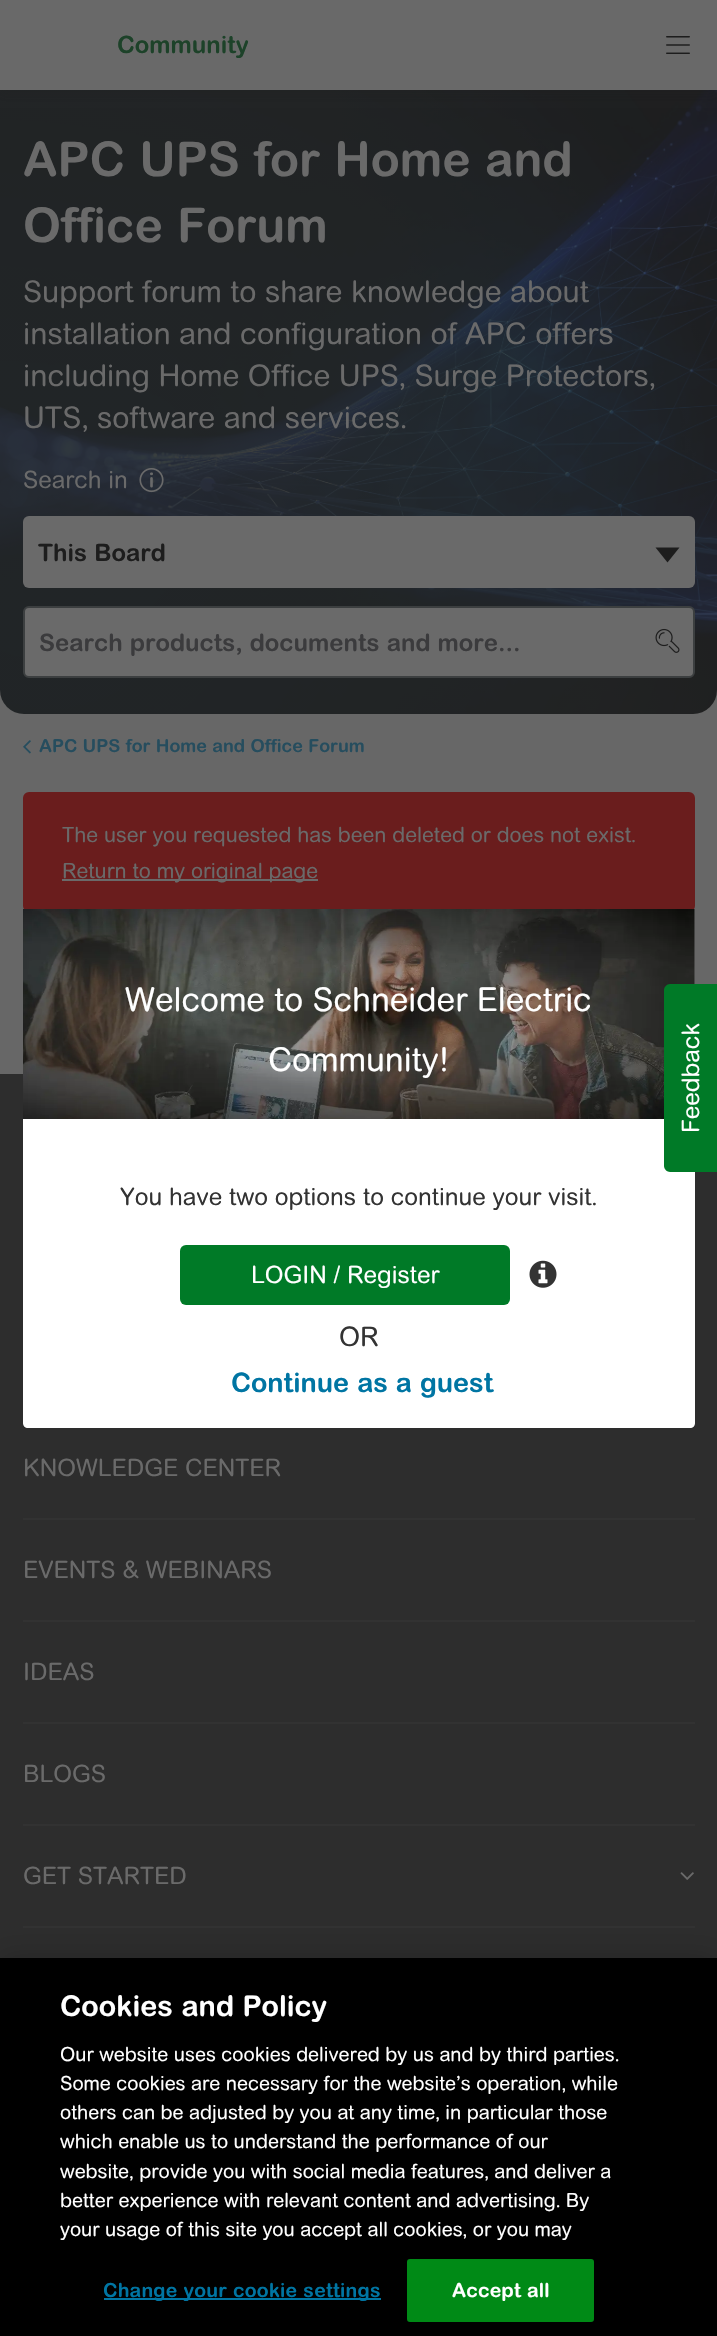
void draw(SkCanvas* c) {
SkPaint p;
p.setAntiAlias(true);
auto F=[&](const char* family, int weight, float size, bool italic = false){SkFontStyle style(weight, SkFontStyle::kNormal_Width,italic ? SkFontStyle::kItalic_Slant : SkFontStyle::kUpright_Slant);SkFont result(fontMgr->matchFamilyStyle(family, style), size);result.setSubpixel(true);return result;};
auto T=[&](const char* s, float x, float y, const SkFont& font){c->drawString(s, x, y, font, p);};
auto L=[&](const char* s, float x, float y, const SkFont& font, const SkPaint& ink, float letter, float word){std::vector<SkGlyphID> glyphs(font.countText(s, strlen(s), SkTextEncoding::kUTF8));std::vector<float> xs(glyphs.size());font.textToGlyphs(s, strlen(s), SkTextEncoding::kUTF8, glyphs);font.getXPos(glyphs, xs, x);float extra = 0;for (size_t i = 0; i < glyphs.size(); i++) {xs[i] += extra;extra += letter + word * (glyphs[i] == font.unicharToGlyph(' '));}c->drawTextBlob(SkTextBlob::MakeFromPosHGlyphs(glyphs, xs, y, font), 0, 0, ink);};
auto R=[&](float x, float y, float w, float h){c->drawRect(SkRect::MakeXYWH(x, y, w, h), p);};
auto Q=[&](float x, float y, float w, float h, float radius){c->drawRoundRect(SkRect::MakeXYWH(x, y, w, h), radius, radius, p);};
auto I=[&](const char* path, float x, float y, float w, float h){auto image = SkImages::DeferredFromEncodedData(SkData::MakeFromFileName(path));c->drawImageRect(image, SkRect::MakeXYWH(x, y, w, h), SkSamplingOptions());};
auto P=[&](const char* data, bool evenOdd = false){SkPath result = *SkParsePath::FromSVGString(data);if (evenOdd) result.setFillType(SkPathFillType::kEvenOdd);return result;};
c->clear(0xff676767);
I("2.png",0,90,717,624);
p.setColor(0x291d1d1d);
p.setMaskFilter(SkMaskFilter::MakeBlur(kNormal_SkBlurStyle, 4.5));
c->drawRect(SkRect::MakeXYWH(0,5,717,90),p);
p.setMaskFilter(nullptr);
p.setColor(0xff696969);
R(0,0,717,90);
auto f1 = F("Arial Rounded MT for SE",700,24);
p.setColor(0xff1d4229);
T("Community",117,53,f1);
I("1.png",666,36,24,18);
auto f2 = F("Arial Rounded MT for SE",700,48);
p.setColor(0xff6a6a6a);
T("APC UPS for Home and",23,176,f2);
T("Office Forum",23,242,f2);
auto f3 = F("Arial Rounded MT for SE",400,30);
T("Support forum to share knowledge about",23,302,f3);
T("installation and configuration of APC offers",23,344,f3);
T("including Home Office UPS, Surge Protectors,",23,386,f3);
T("UTS, software and services.",23,428,f3);
auto f4 = F("Arial Rounded MT for SE",400,24);
T("Search in",23,488,f4);
I("3.png",139,468,25,25);
Q(23,516,672,72,6);
p.setColor(0xff1d1d1d);
T("This Board",38,561,f1);
c->drawPath(P("M667.5 562.5l-12-15h24z"),p);
p.setColor(0xff6a6a6a);
c->drawRoundRect(SkRect::MakeXYWH(24,607,670,70),5,5,p);
p.setStroke(true);
p.setStrokeWidth(2);
p.setColor(0xff3c3f40);
c->drawRoundRect(SkRect::MakeXYWH(24,607,670,70),5,5,p);
p.setStroke(false);
p.setColor(0xff3b3b3d);
T("Search products, documents and more...",39,651,f1);
I("4.png",655,628,25,25);
I("5.png",23,740,8,14);
auto f5 = F("Arial Rounded MT for SE",700,18);
p.setColor(0xff264d5e);
T("APC UPS for Home and Office Forum",39,752,f5);
p.setColor(0xff6a1d1d);
c->drawRoundRect(SkRect::MakeXYWH(24,793,670,118),5,5,p);
p.setStroke(true);
c->drawRoundRect(SkRect::MakeXYWH(24,793,670,118),5,5,p);
auto f6 = F("Arial Rounded MT for SE",400,21);
p.setStroke(false);
p.setColor(0xff6a6a6a);
T("The user you requested has been deleted or does not exist.",62,842,f6);
R(62,879,256,2);
T("Return to my original page",62,878,f6);
p.setColor(0xff2d2d2d);
R(0,1074,717,884);
I("6.png",23,909,672,210);
auto f7 = F("Arial Rounded MT for SE",400,33);
p.setColor(0xffffffff);
T("Welcome to Schneider Electric",125,1011,f7);
T("Community!",268,1071,f7);
c->drawPath(P("M23 1119h672v304c0 3-2 5-5 5h-662c-3 0-5-2-5-5z"),p);
p.setColor(0xff333333);
T("You have two options to continue your visit.",120,1205,f4);
p.setColor(0xff007a27);
Q(180,1245,330,60,6);
p.setColor(0xffffffff);
T("LOGIN / Register",251,1283,f4);
I("7.png",529,1260,28,28);
auto f8 = F("Arial Rounded MT for SE",400,27);
p.setColor(0xff333333);
T("OR",339,1346,f8);
auto f9 = F("Arial Rounded MT for SE",700,27);
p.setColor(0xff0075a3);
T("Continue as a guest",231,1392,f9);
p.setColor(0xff323232);
R(23,1518,672,2);
p.setColor(0xff6a6a6a);
T("KNOWLEDGE CENTER",23,1476,f4);
p.setColor(0xff323232);
R(23,1620,672,2);
p.setColor(0xff6a6a6a);
T("EVENTS & WEBINARS",23,1578,f4);
p.setColor(0xff323232);
R(23,1722,672,2);
p.setColor(0xff6a6a6a);
T("IDEAS",23,1680,f4);
p.setColor(0xff323232);
R(23,1824,672,2);
p.setColor(0xff6a6a6a);
T("BLOGS",23,1782,f4);
p.setColor(0xff323232);
R(23,1926,672,2);
p.setColor(0xff6a6a6a);
T("GET STARTED",23,1884,f4);
I("8.png",680,1872,14,8);
p.setColor(0xff007a27);
c->drawPath(P("M717 984v188h-47c-3 0-6-3-6-6v-176c0-3 3-6 6-6z"),p);
p.setColor(0xffffffff);
c->save();
c->rotate(-90,699,1133);
T("Feedback",699,1133,f4);
c->restore();
p.setColor(0x33000000);
p.setMaskFilter(SkMaskFilter::MakeBlur(kNormal_SkBlurStyle, 13.5));
c->drawRect(SkRect::MakeXYWH(0,1958,717,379),p);
p.setMaskFilter(nullptr);
p.setColor(0xff000000);
R(0,1958,717,378);
auto f10 = F("Arial Rounded MT for SE",700,28.75);
p.setColor(0xffffffff);
T("Cookies and Policy",60,2016,f10);
auto f11 = F("Arial Rounded MT for SE",400,19.5);
T("Our website uses cookies delivered by us and by third parties.",60,2061,f11);
T("Some cookies are necessary for the website’s operation, while",60,2090,f11);
T("others can be adjusted by you at any time, in particular those",60,2119,f11);
T("which enable us to understand the performance of our",60,2148,f11);
T("website, provide you with social media features, and deliver a",60,2178,f11);
T("better experience with relevant content and advertising. By",60,2207,f11);
T("your usage of this site you accept all cookies, or you may",60,2236,f11);
p.setColor(0xff0075a3);
R(104,2298,277,2);
auto f12 = F("Arial Rounded MT for SE",700,19.5);
L("Change your cookie settings",103,2297,f12,p,.2,0);
p.setColor(0xff008a16);
c->drawRoundRect(SkRect::MakeXYWH(408,2260,185,61),2,2,p);
p.setStroke(true);
c->drawRoundRect(SkRect::MakeXYWH(408,2260,185,61),2,2,p);
p.setStroke(false);
p.setColor(0xffffffff);
L("Accept all",452,2297,f12,p,.2,0);
}
